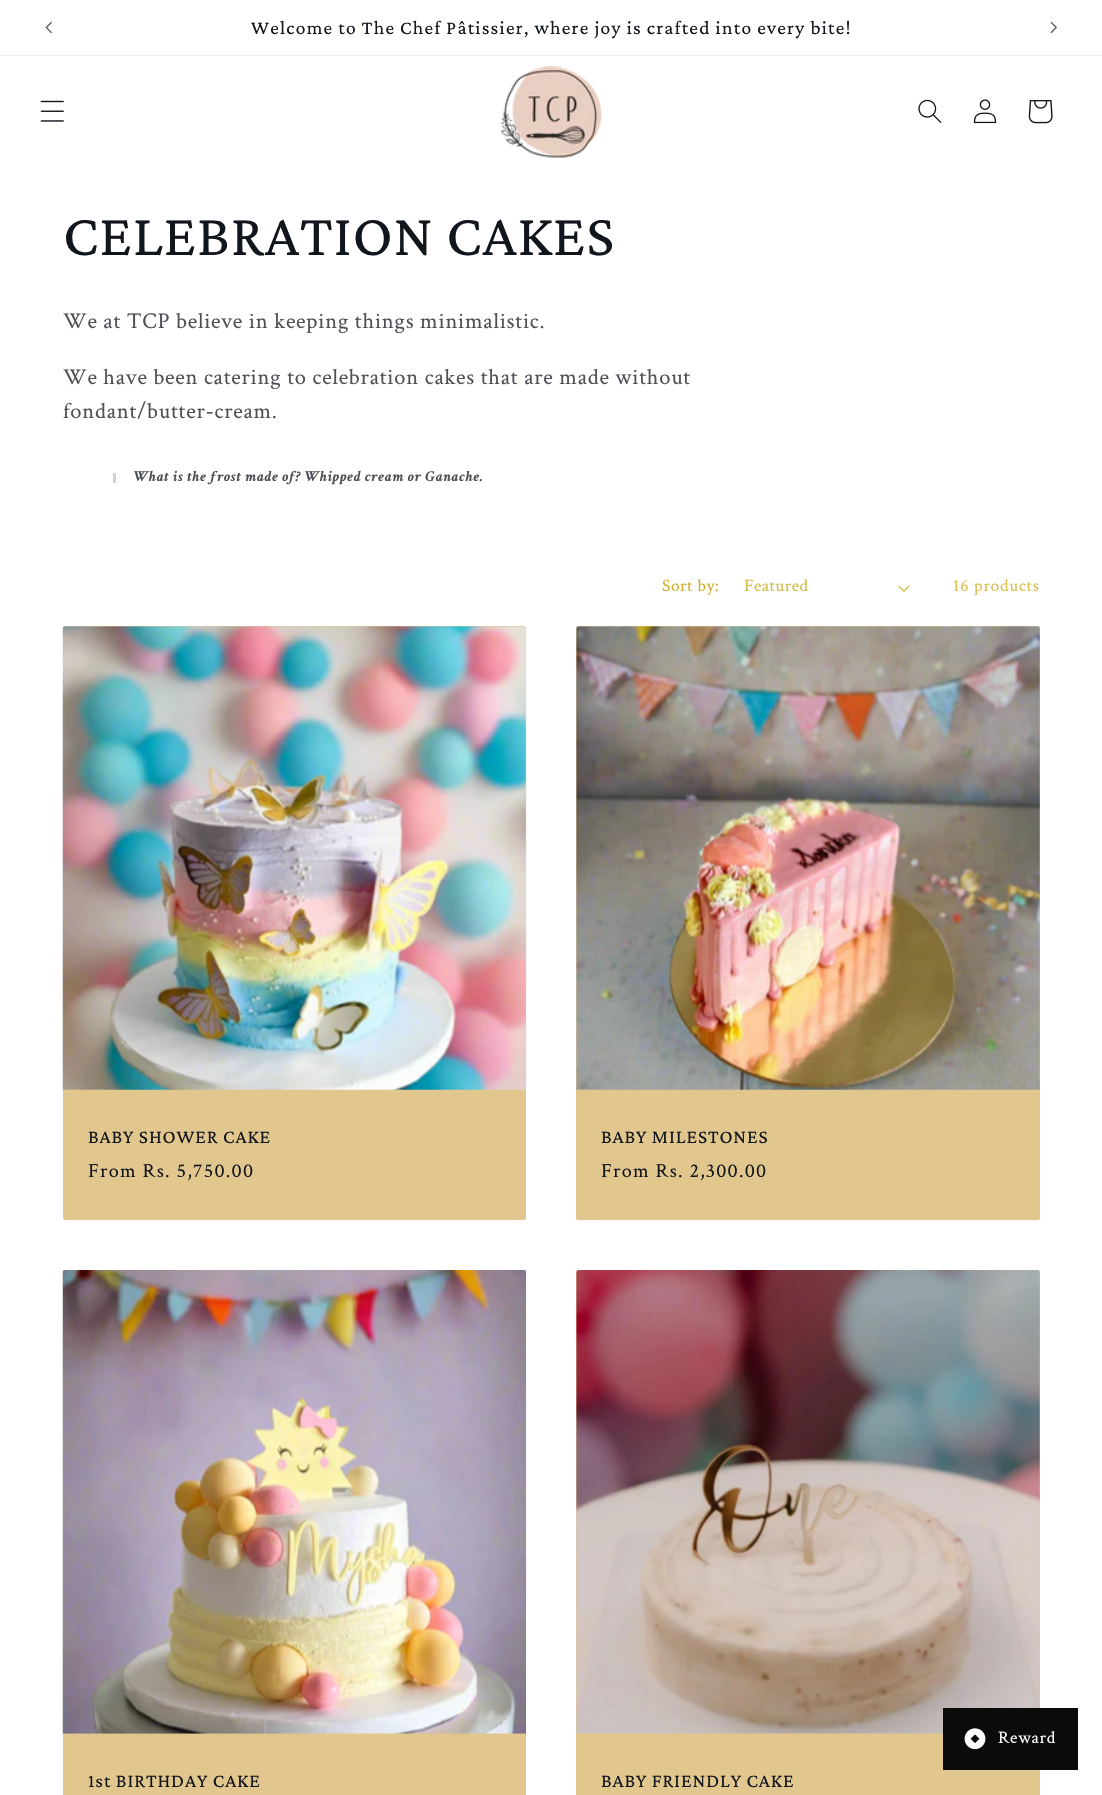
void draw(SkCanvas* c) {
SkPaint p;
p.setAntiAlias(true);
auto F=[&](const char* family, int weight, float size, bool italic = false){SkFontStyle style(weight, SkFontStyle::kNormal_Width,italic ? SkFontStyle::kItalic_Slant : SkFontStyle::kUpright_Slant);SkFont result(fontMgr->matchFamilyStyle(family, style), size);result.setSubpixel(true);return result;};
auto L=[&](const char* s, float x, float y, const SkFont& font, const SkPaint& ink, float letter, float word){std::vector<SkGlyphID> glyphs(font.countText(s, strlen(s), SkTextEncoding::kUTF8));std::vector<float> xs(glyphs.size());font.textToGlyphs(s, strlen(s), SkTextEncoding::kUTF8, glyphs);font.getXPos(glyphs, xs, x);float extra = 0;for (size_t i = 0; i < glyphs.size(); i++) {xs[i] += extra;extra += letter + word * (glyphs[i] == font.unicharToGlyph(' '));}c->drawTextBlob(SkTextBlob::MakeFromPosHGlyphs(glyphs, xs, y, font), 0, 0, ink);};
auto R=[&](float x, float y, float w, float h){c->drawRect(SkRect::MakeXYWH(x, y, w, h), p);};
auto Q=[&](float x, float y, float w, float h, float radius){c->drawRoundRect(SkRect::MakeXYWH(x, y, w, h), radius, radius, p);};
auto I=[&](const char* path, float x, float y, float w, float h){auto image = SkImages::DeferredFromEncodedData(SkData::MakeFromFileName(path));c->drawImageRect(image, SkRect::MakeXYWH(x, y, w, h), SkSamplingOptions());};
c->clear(0xffffffff);
p.setColor(0xffececed);
R(0,55,1102,1);
I("1.png",45,21,7,12);
auto f1 = F("Crimson Pro",400,19.5);
p.setColor(0xff11151c);
L("Welcome to The Chef Pâtissier, where joy is crafted into every bite!",251,34,f1,p,1.25,0);
I("2.png",1050,22,7,11);
I("3.png",40,100,24,22);
I("4.png",501,66,101,92);
I("5.png",918,99,24,24);
I("6.png",973,99,24,25);
I("7.png",1028,100,25,24);
auto f2 = F("Crimson Pro",400,60);
L("CELEBRATION CAKES",63,255,f2,p,.9,0);
auto f3 = F("Crimson Text",400,22.5);
p.setColor(0xff4d5055);
L("We at TCP believe in keeping things minimalistic.",63,328,f3,p,.75,0);
L("We have been catering to celebration cakes that are made without",63,384,f3,p,.75,0);
L("fondant/butter-cream.",63,418,f3,p,.75,0);
p.setColor(0xffcfd0d2);
R(113,473,3,10);
auto f4 = F("Crimson Text",700,15.1,true);
p.setColor(0xff4d5055);
L("What is the frost made of? Whipped cream or Ganache.",134,481,f4,p,.75,0);
auto f5 = F("Crimson Text",400,17.5);
p.setColor(0xffcfaf2a);
L("Sort by:",662,591,f5,p,.5,0);
p.setColor(0xffd5b943);
L("Featured",744,591,f5,p,.5,0);
I("8.png",898,585,12,7);
p.setColor(0xffd8bd4f);
L("16 products",953,591,f5,p,.75,0);
p.setColor(0xffe1c68e);
Q(63,626,463,594,2.5);
I("9.png",62,626,465,464);
p.setColor(0xff11151c);
L("BABY SHOWER CAKE",88,1143,f1,p,.9,0);
auto f6 = F("Crimson Text",400,20);
L("From Rs. 5,750.00",88,1177,f6,p,1.25,0);
p.setColor(0xffe1c68e);
Q(576,626,464,594,2.5);
I("10.png",576,626,464,464);
p.setColor(0xff11151c);
L("BABY MILESTONES",601,1143,f1,p,.9,0);
L("From Rs. 2,300.00",601,1177,f6,p,1.25,0);
p.setColor(0xffe1c68e);
Q(63,1270,463,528,2.5);
I("11.png",62,1270,465,464);
p.setColor(0xff11151c);
L("1st BIRTHDAY CAKE",88,1787,f1,p,.9,0);
p.setColor(0xffe1c68e);
Q(576,1270,464,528,2.5);
I("12.png",576,1270,464,464);
p.setColor(0xff11151c);
L("BABY FRIENDLY CAKE",601,1787,f1,p,.9,0);
p.setColor(0xff0b0b0b);
R(943,1708,135,62);
I("13.png",964,1728,22,22);
p.setColor(0xffffffff);
L("Reward",998,1743,f5,p,.75,0);
}
